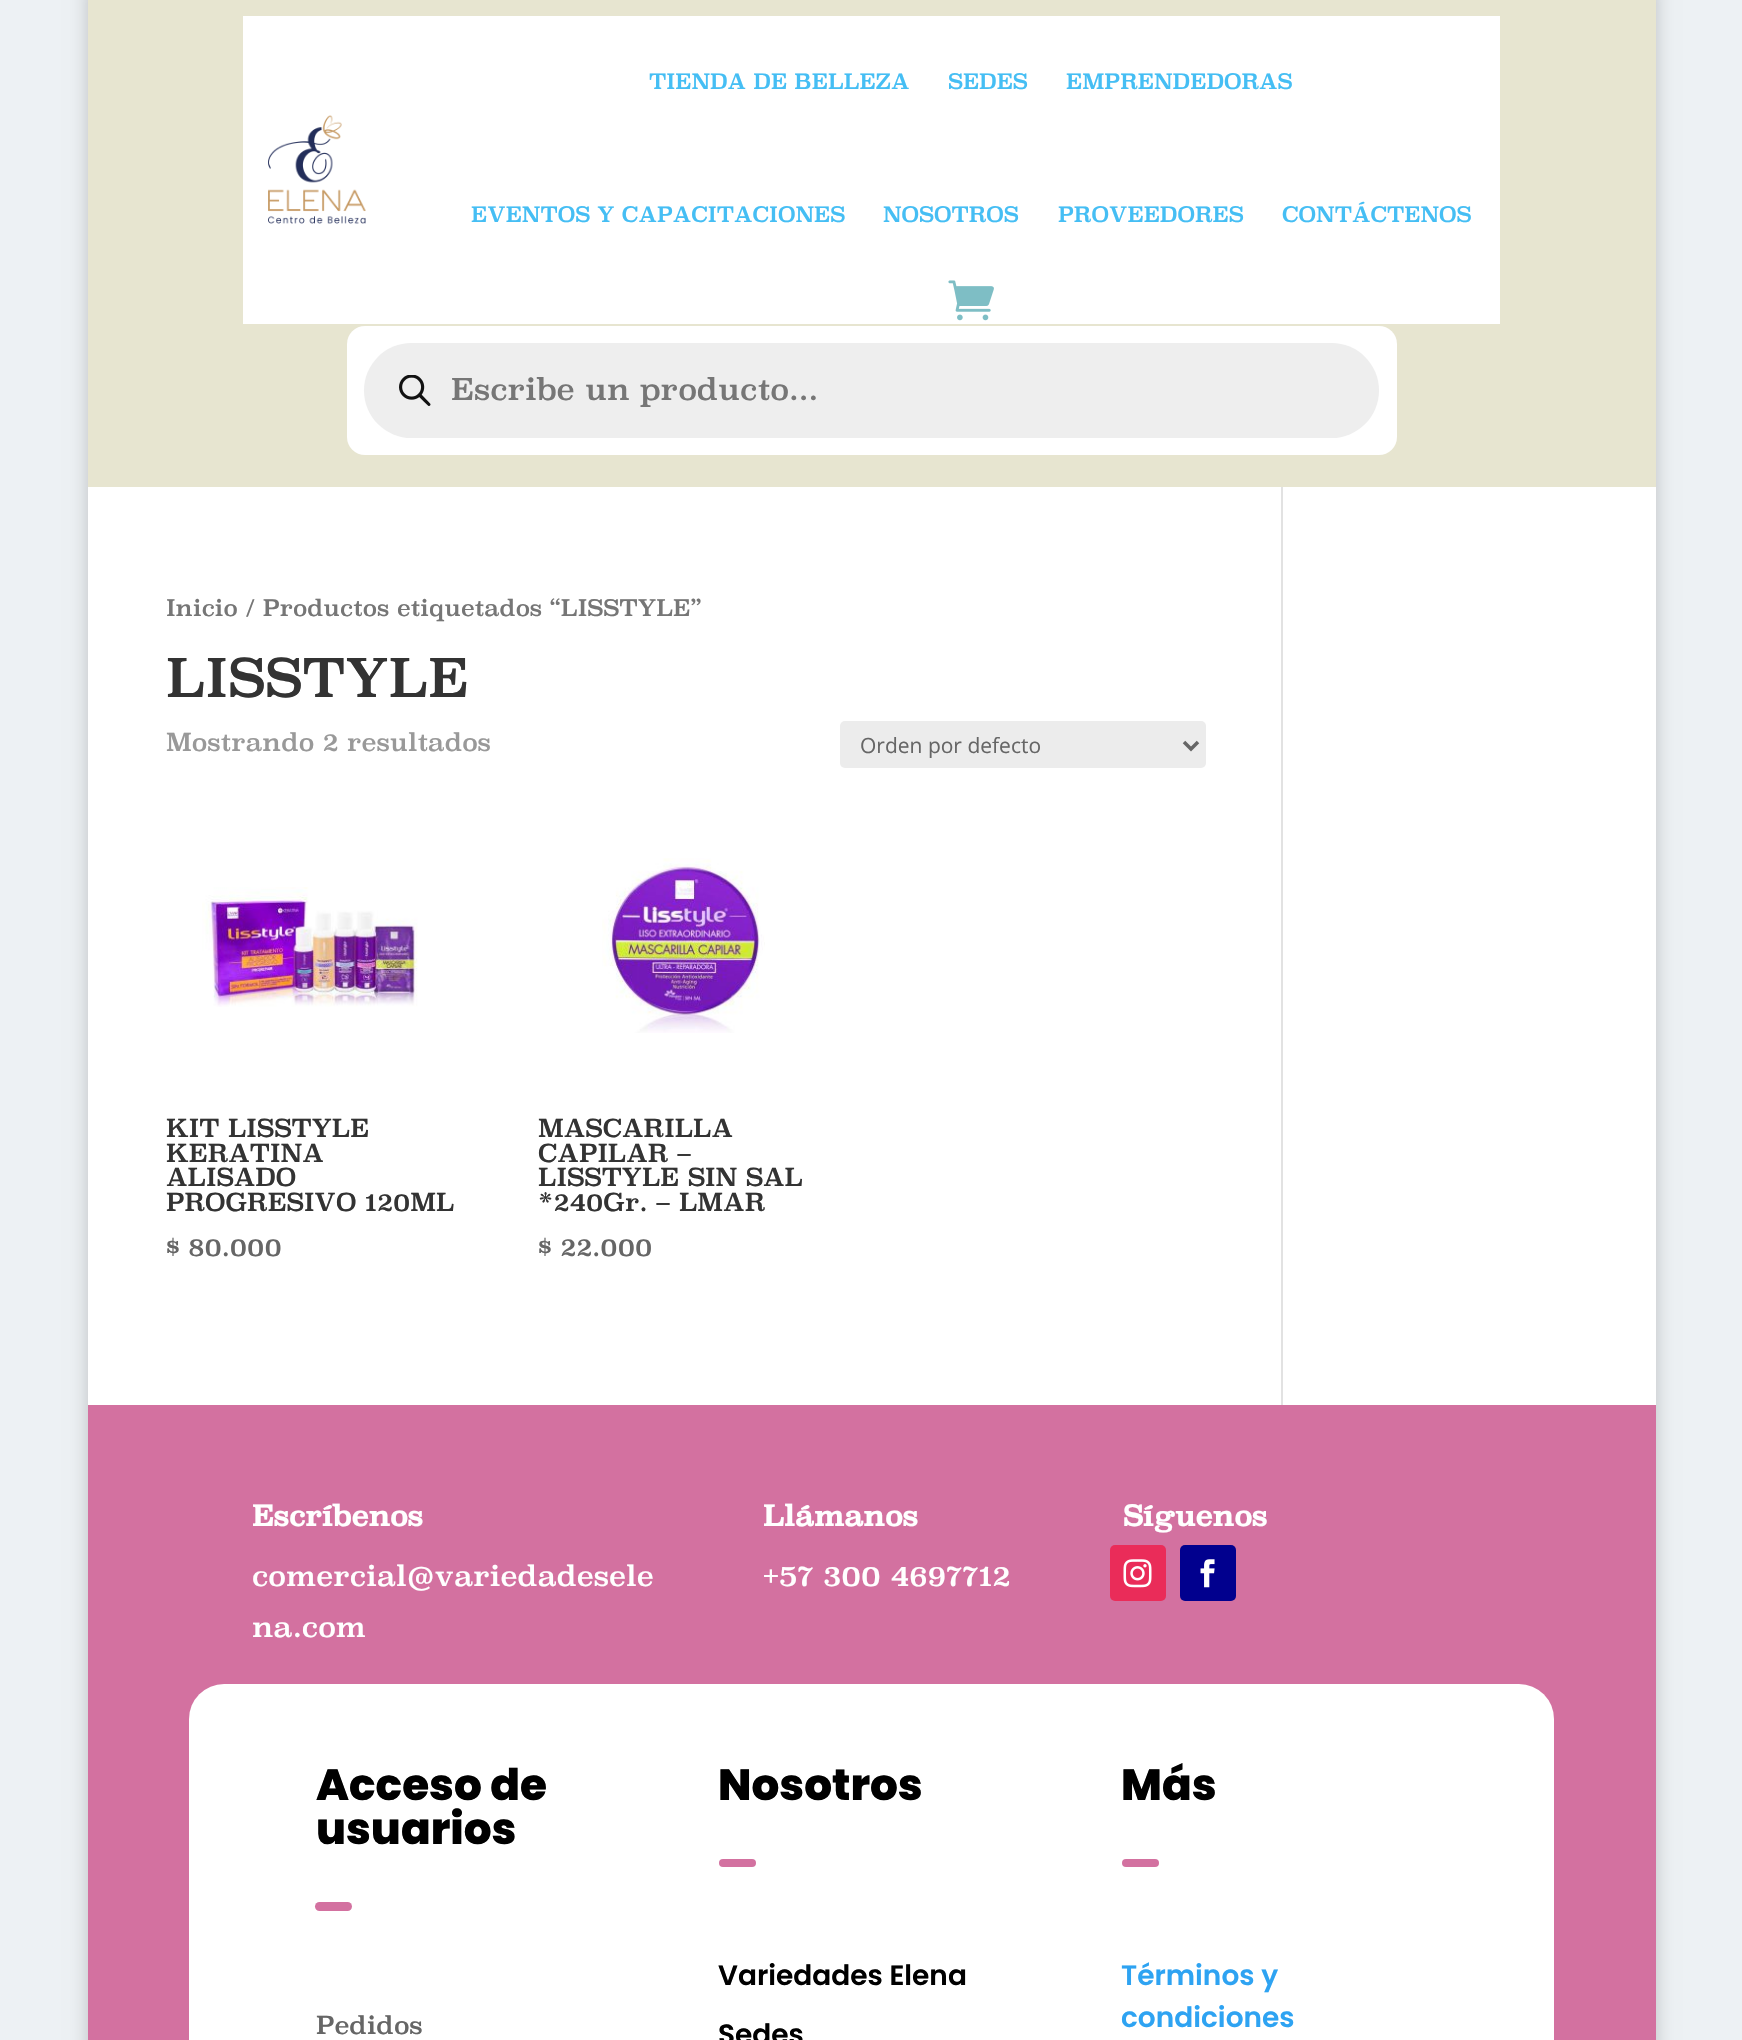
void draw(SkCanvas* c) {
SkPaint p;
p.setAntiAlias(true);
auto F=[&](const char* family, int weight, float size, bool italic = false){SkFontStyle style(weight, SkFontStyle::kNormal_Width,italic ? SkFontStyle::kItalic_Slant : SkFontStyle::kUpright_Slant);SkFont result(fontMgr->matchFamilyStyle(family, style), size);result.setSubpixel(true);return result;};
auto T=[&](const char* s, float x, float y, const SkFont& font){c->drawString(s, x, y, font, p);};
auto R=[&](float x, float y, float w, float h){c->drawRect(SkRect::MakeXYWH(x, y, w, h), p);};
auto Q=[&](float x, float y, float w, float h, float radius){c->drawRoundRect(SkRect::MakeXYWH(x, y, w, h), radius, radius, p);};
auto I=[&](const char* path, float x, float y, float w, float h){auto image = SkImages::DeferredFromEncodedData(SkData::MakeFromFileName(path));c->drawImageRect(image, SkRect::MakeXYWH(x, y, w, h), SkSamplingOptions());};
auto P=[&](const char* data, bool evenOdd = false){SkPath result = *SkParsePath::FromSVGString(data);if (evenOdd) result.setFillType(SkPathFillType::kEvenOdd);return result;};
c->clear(0xffedf1f4);
p.setColor(0x33000000);
p.setMaskFilter(SkMaskFilter::MakeBlur(kNormal_SkBlurStyle, 9));
c->drawRect(SkRect::MakeXYWH(88,-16,1568,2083),p);
p.setMaskFilter(nullptr);
p.setColor(0xffe7e5d0);
R(88,0,1568,487);
p.setColor(0xffffffff);
R(243,16,1257,308);
I("1.png",268,115,98,109);
auto f1 = F("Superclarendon",400,21);
p.setColor(0xff45bef4);
T("TIENDA DE BELLEZA",649,89,f1);
T("SEDES",948,89,f1);
T("EMPRENDEDORAS",1066,89,f1);
T("EVENTOS Y CAPACITACIONES",471,222,f1);
T("NOSOTROS",883,222,f1);
T("PROVEEDORES",1058,222,f1);
T("CONTÁCTENOS",1282,222,f1);
I("2.png",948,280,46,41);
p.setColor(0xffffffff);
Q(347,326,1050,129,18);
p.setColor(0xffeeeeee);
Q(364,343,1015,95,47.5);
I("3.png",399,375,32,31);
auto f2 = F("Superclarendon",400,29.75);
p.setColor(0xff767676);
T("Escribe un producto...",451,400,f2);
p.setColor(0xffffffff);
R(88,487,1568,918);
auto f3 = F("Superclarendon",400,22.5);
p.setColor(0xff767676);
T("Inicio / Productos etiquetados “LISSTYLE”",166,616,f3);
auto f4 = F("Superclarendon",400,52.5);
p.setColor(0xff333333);
T("LISSTYLE",166,697,f4);
auto f5 = F("Superclarendon",400,24.5);
p.setColor(0xff999999);
T("Mostrando 2 resultados",166,751,f5);
p.setColor(0xffececec);
Q(840,721,366,47,5);
p.setStroke(true);
p.setStrokeWidth(3.5);
p.setColor(0xff666666);
c->drawPath(P("M1184 742l7 7l7-7"),p);
auto f6 = F("Open Sans",400,21);
p.setStroke(false);
T("Orden por defecto",860,753,f6);
I("4.png",202,887,216,120);
p.setColor(0xff333333);
T("KIT LISSTYLE",166,1137,f5);
T("KERATINA",166,1162,f5);
T("ALISADO",166,1186,f5);
T("PROGRESIVO 120ML",166,1211,f5);
p.setColor(0xff666666);
T("$ 80.000",166,1256,f5);
I("5.png",602,858,163,175);
p.setColor(0xff333333);
T("MASCARILLA",538,1137,f5);
T("CAPILAR –",538,1162,f5);
T("LISSTYLE SIN SAL",538,1186,f5);
T("*240Gr. – LMAR",538,1211,f5);
p.setColor(0xff666666);
T("$ 22.000",538,1256,f5);
p.setColor(0xffe2e2e2);
R(1281,487,2,918);
p.setColor(0xffd371a0);
R(88,1405,1568,635);
auto f7 = F("Superclarendon",700,28);
p.setColor(0xffffffff);
T("Escríbenos",252,1526,f7);
auto f8 = F("Superclarendon",400,28);
T("comercial@variedadesele",252,1586,f8);
T("na.com",252,1637,f8);
T("Llámanos",763,1526,f7);
T("+57 300 4697712",763,1586,f8);
T("Síguenos",1123,1526,f7);
p.setColor(0xffea2c59);
Q(1110,1545,56,56,5);
I("6.png",1123,1559,29,29);
p.setColor(0xff01008e);
Q(1180,1545,56,56,5);
I("7.png",1200,1559,15,29);
p.setColor(0xffffffff);
Q(189,1684,1365,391,35);
auto f9 = F("Poppins",800,43.75);
p.setColor(0xff000000);
T("Acceso de",316,1800,f9);
T("usuarios",316,1844,f9);
p.setColor(0xffd371a0);
Q(315,1902,37,9,4.5);
p.setColor(0xff666666);
T("Pedidos",316,2034,f5);
p.setColor(0xff000000);
T("Nosotros",718,1800,f9);
p.setColor(0xffd371a0);
Q(719,1859,37,8,4);
auto f10 = F("Poppins",600,28);
p.setColor(0xff000000);
T("Variedades Elena",718,1985,f10);
T("Sedes",718,2044,f10);
T("Más",1121,1800,f9);
p.setColor(0xffd371a0);
Q(1122,1859,37,8,4);
p.setColor(0xff2ea3f2);
T("Términos y",1121,1985,f10);
T("condiciones",1121,2027,f10);
}
